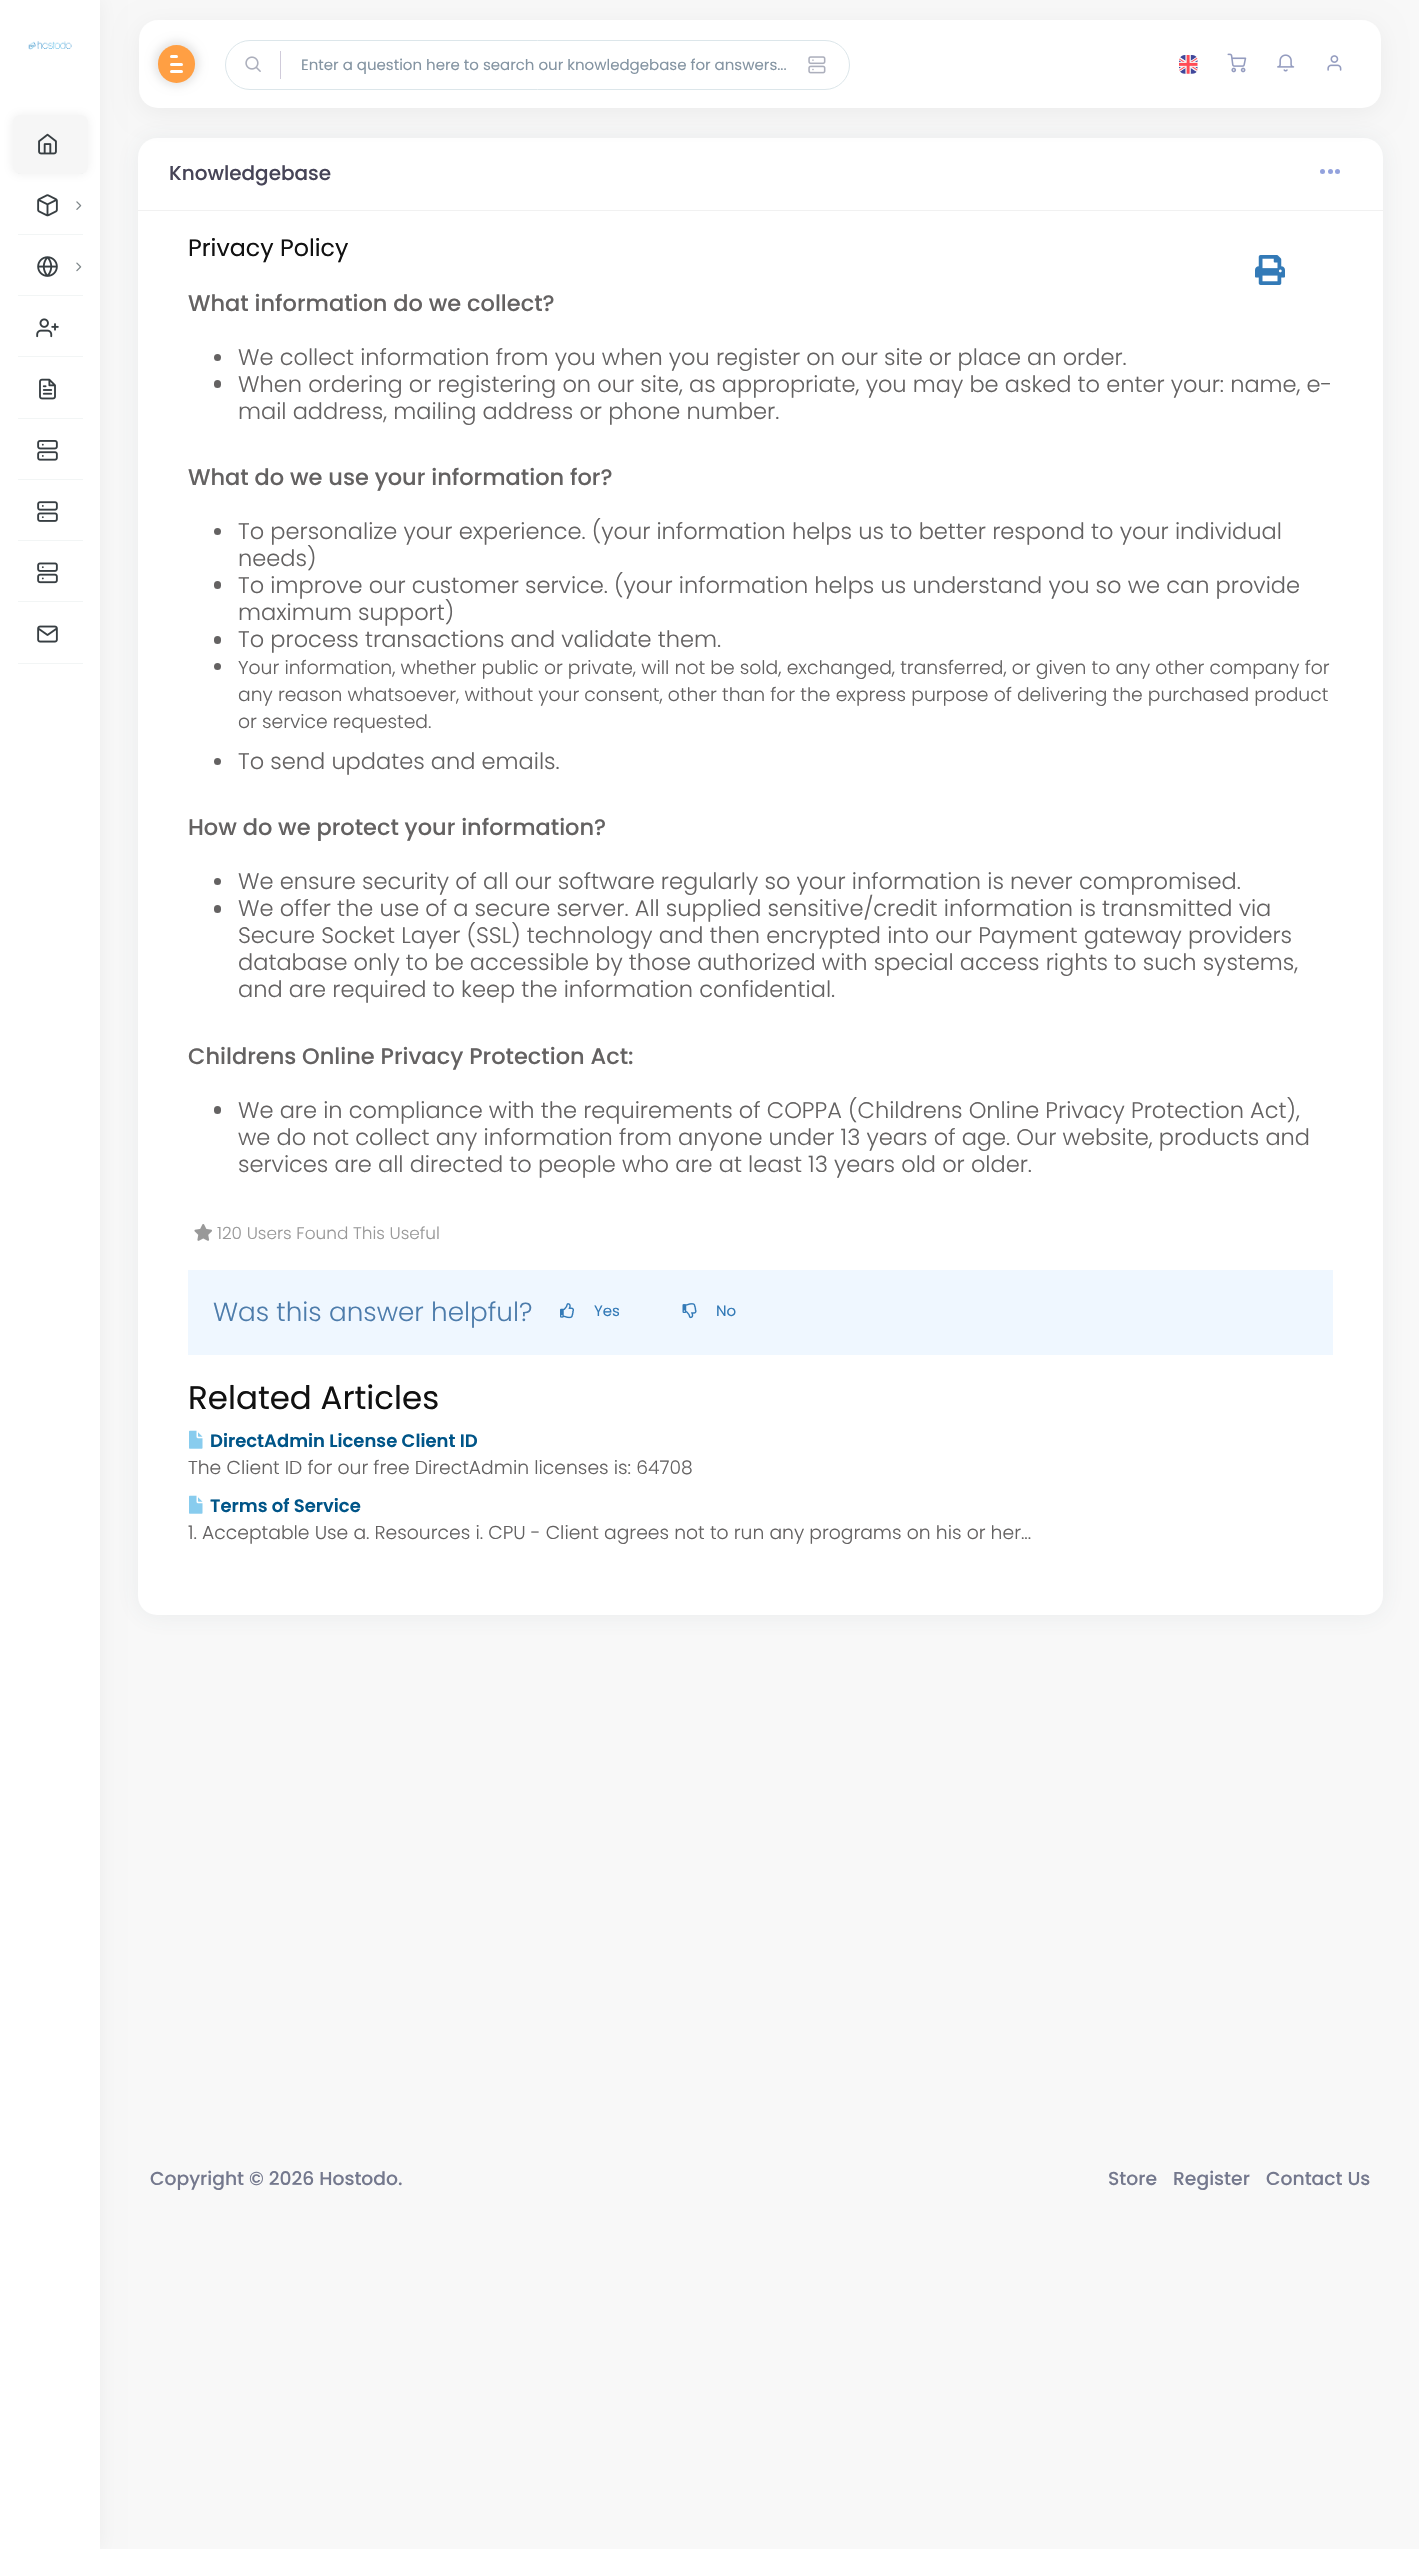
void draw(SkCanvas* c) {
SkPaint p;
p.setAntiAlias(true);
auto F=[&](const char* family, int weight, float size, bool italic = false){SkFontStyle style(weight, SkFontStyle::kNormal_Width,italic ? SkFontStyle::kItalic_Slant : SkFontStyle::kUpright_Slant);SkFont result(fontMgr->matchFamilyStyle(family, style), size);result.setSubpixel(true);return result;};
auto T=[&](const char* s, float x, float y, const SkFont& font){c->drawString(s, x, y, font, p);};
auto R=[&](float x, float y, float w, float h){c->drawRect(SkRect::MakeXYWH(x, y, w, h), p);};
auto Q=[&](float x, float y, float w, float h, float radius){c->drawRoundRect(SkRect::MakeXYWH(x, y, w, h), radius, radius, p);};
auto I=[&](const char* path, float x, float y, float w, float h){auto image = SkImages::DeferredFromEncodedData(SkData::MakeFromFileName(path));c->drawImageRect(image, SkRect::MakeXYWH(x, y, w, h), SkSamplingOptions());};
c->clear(0xfff8f8f8);
p.setColor(0x0d000000);
p.setMaskFilter(SkMaskFilter::MakeBlur(kNormal_SkBlurStyle, 9.5));
c->drawRect(SkRect::MakeXYWH(0,0,100,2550),p);
p.setMaskFilter(nullptr);
p.setColor(0x14455a64);
p.setMaskFilter(SkMaskFilter::MakeBlur(kNormal_SkBlurStyle, 12.5));
c->drawRoundRect(SkRect::MakeXYWH(138,139,1245,1477),19,19,p);
p.setMaskFilter(nullptr);
p.setColor(0xffffffff);
R(0,0,100,2549);
I("1.png",28,41,44,9);
p.setColor(0xfff2f5f5);
R(18,173,65,1);
p.setColor(0x1a818181);
p.setMaskFilter(SkMaskFilter::MakeBlur(kNormal_SkBlurStyle, 4.5));
c->drawRoundRect(SkRect::MakeXYWH(11,114,78,61),9,9,p);
p.setMaskFilter(nullptr);
p.setColor(0xfff6f6f6);
Q(13,115,75,59,8);
I("2.png",38,133,19,22);
I("3.png",37,194,21,23);
I("4.png",76,201,6,9);
p.setColor(0xfff2f5f5);
R(18,234,65,1);
I("5.png",37,256,21,21);
I("6.png",76,262,6,10);
R(18,295,65,1);
I("7.png",36,318,23,20);
R(18,356,65,1);
I("8.png",39,378,17,22);
R(18,418,65,1);
I("9.png",37,440,21,21);
R(18,479,65,1);
I("10.png",37,501,21,21);
R(18,540,65,1);
I("11.png",37,562,21,22);
R(18,601,65,1);
I("12.png",37,625,21,18);
R(18,663,65,1);
p.setColor(0xffffffff);
Q(138,138,1245,1477,19);
p.setColor(0x0d000000);
p.setMaskFilter(SkMaskFilter::MakeBlur(kNormal_SkBlurStyle, 12.5));
c->drawRoundRect(SkRect::MakeXYWH(139,25,1242,88),19,19,p);
p.setMaskFilter(nullptr);
p.setColor(0xffffffff);
Q(139,20,1242,88,19);
p.setColor(0x1a000000);
p.setMaskFilter(SkMaskFilter::MakeBlur(kNormal_SkBlurStyle, 4.5));
c->drawRoundRect(SkRect::MakeXYWH(154,41,45,45),22.5,22.5,p);
p.setMaskFilter(nullptr);
p.setColor(0xffff9f43);
Q(158,45,37,38,18.5);
p.setColor(0xffffffff);
Q(170,63,13,3,1.5);
Q(170,55,8,3,1.5);
Q(170,70,13,3,1.5);
p.setStroke(true);
p.setStrokeWidth(1);
p.setColor(0xffdce6ea);
c->drawRoundRect(SkRect::MakeXYWH(225.5,40.5,624,49),24.5,24.5,p);
p.setStroke(false);
p.setColor(0xffd0cbda);
R(280,51,1,28);
I("13.png",245,56,16,16);
auto f1 = F("Poppins",400,15);
p.setColor(0xff8494a2);
T("Enter a question here to search our knowledgebase for answers...",301,70,f1);
I("14.png",808,56,18,18);
I("15.png",1179,55,19,19);
I("16.png",1227,53,20,20);
I("17.png",1277,54,18,18);
I("18.png",1327,55,15,16);
p.setColor(0xfff1f1f1);
R(138,210,1245,1);
auto f2 = F("Poppins",500,20);
p.setColor(0xff464457);
T("Knowledgebase",169,180,f2);
p.setColor(0xff93a2dd);
c->drawCircle(1330.5,171.5,2.5,p);
c->drawCircle(1322.5,171.5,2.5,p);
c->drawCircle(1337.5,171.5,2.5,p);
auto f3 = F("Poppins",400,23.75);
p.setColor(0xff111111);
T("Privacy Policy",188,256,f3);
I("19.png",1255,255,30,30);
auto f4 = F("Poppins",500,22.5);
p.setColor(0xff646262);
T("What information do we collect?",188,311,f4);
c->drawCircle(217.5,357.5,3.5,p);
auto f5 = F("Poppins",300,22.5);
T("We collect information from you when you register on our site or place an order.",238,365,f5);
Q(214,380,7,8,3.5);
T("When ordering or registering on our site, as appropriate, you may be asked to enter your: name, e-",238,392,f5);
T("mail address, mailing address or phone number.",238,419,f5);
T("What do we use your information for?",188,485,f4);
c->drawCircle(217.5,531.5,3.5,p);
T("To personalize your experience. (your information helps us to better respond to your individual",238,539,f5);
T("needs)",238,566,f5);
Q(214,581,7,8,3.5);
T("To improve our customer service. (your information helps us understand you so we can provide",238,593,f5);
T("maximum support)",238,620,f5);
Q(214,636,7,8,3.5);
T("To process transactions and validate them.",238,647,f5);
c->drawCircle(217.5,666.5,3.5,p);
auto f6 = F("Poppins",300,18.75);
T("Your information, whether public or private, will not be sold, exchanged, transferred, or given to any other company for",238,674,f6);
T("any reason whatsoever, without your consent, other than for the express purpose of delivering the purchased product",238,701,f6);
T("or service requested.",238,728,f6);
c->drawCircle(217.5,761.5,3.5,p);
T("To send updates and emails.",238,769,f5);
T("How do we protect your information?",188,835,f4);
c->drawCircle(217.5,881.5,3.5,p);
T("We ensure security of all our software regularly so your information is never compromised.",238,889,f5);
Q(214,905,7,8,3.5);
T("We offer the use of a secure server. All supplied sensitive/credit information is transmitted via",238,916,f5);
T("Secure Socket Layer (SSL) technology and then encrypted into our Payment gateway providers",238,943,f5);
T("database only to be accessible by those authorized with special access rights to such systems,",238,970,f5);
T("and are required to keep the information confidential.",238,997,f5);
T("Childrens Online Privacy Protection Act:",188,1064,f4);
Q(214,1106,7,8,3.5);
T("We are in compliance with the requirements of COPPA (Childrens Online Privacy Protection Act),",238,1118,f5);
T("we do not collect any information from anyone under 13 years of age. Our website, products and",238,1145,f5);
T("services are all directed to people who are at least 13 years old or older.",238,1172,f5);
I("20.png",194,1224,18,17);
auto f7 = F("Poppins",300,16.9);
p.setColor(0xff999999);
T("120 Users Found This Useful",217,1239,f7);
p.setColor(0xffeff7ff);
R(188,1270,1145,85);
auto f8 = F("Poppins",300,26.25);
p.setColor(0xff4d7cab);
T("Was this answer helpful?",213,1321,f8);
I("21.png",560,1303,14,16);
p.setColor(0xff337ab7);
T("Yes",594,1316,f1);
I("22.png",682,1303,15,16);
T("No",716,1316,f1);
auto f9 = F("Poppins",400,32.5);
p.setColor(0xff111111);
T("Related Articles",188,1409,f9);
I("23.png",189,1430,14,19);
auto f10 = F("Poppins",600,18);
p.setColor(0xff005588);
T("DirectAdmin License Client ID",210,1447,f10);
p.setColor(0xff646262);
T("The Client ID for our free DirectAdmin licenses is: 64708",188,1474,f6);
I("23.png",189,1495,14,19);
p.setColor(0xff005588);
T("Terms of Service",210,1512,f10);
p.setColor(0xff646262);
T("1. Acceptable Use a. Resources i. CPU - Client agrees not to run any programs on his or her...",188,1539,f6);
auto f11 = F("Poppins",500,18.75);
p.setColor(0xff74788d);
T("Copyright © 2026 Hostodo.",150,2185,f11);
T("Store",1108,2185,f11);
T("Register",1173,2185,f11);
T("Contact Us",1266,2185,f11);
}
